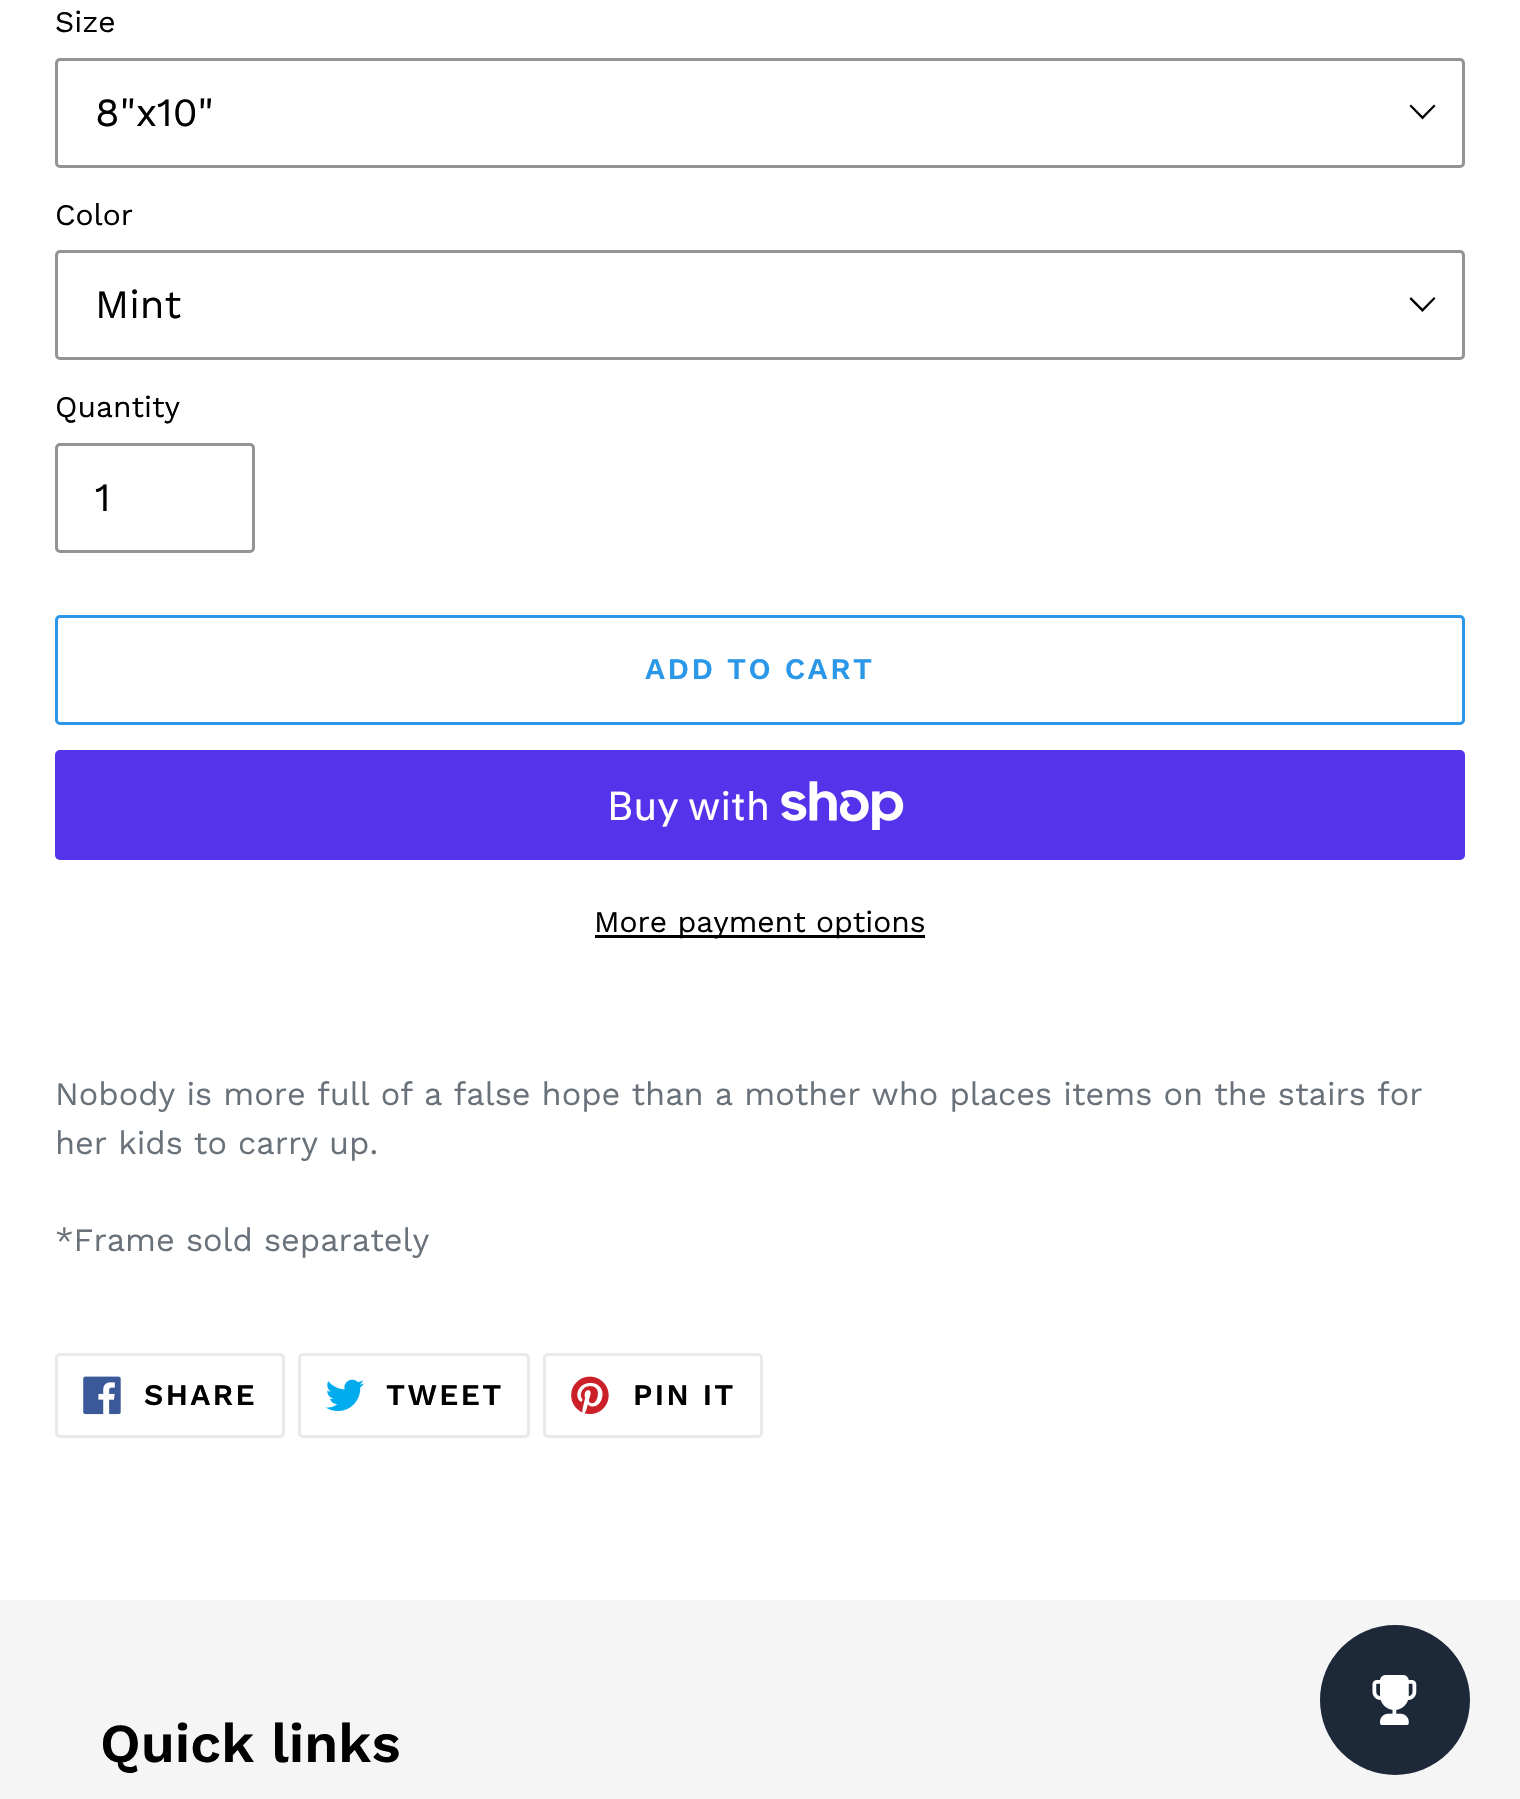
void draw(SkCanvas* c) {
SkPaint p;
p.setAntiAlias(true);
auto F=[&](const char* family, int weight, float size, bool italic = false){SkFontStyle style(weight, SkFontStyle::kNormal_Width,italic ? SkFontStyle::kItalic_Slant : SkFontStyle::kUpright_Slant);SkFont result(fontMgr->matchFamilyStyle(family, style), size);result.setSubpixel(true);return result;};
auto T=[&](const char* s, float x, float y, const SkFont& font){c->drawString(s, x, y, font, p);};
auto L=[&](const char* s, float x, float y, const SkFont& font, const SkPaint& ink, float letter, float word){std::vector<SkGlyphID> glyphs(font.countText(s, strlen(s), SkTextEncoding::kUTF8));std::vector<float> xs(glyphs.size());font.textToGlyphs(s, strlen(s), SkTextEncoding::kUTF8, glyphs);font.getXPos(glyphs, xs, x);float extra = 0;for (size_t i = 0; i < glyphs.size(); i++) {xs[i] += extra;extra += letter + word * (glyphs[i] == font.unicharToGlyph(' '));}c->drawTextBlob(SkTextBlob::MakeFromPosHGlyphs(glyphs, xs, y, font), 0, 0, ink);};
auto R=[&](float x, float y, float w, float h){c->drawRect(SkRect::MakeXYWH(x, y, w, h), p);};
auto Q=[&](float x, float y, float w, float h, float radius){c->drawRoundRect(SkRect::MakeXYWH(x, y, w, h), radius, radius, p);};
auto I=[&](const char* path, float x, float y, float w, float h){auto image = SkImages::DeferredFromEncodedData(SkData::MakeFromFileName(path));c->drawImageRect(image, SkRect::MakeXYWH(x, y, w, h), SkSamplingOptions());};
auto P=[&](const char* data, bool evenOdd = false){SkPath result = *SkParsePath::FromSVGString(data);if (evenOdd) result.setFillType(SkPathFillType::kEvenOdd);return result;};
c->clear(0xffffffff);
auto f1 = F("Work Sans",400,30);
p.setColor(0xff000000);
T("Size",55,32,f1);
c->drawPath(P("M1422.5 119.5l-13-13.5l1.5-1.5l11.5 11.5l11.5-11.5l1.5 1.5z"),p);
p.setStroke(true);
p.setStrokeWidth(3);
p.setColor(0xff949494);
c->drawRoundRect(SkRect::MakeXYWH(56.5,59.5,1407,107),3.5,3.5,p);
auto f2 = F("Work Sans",400,40);
p.setStroke(false);
p.setColor(0xff000000);
T("8\"x10\"",95,126,f2);
T("Color",55,225,f1);
c->drawPath(P("M1422.5 312l-13-13l1.5-2l11.5 11.5l11.5-11.5l1.5 1.5z"),p);
p.setStroke(true);
p.setColor(0xff949494);
c->drawRoundRect(SkRect::MakeXYWH(56.5,251.5,1407,107),3.5,3.5,p);
p.setStroke(false);
p.setColor(0xff000000);
T("Mint",95,318,f2);
T("Quantity",55,417,f1);
p.setStroke(true);
p.setColor(0xff949494);
c->drawRoundRect(SkRect::MakeXYWH(56.5,444.5,197,107),3.5,3.5,p);
p.setStroke(false);
p.setColor(0xff000000);
T("1",95,511,f2);
p.setStroke(true);
p.setColor(0xff2a97e8);
c->drawRoundRect(SkRect::MakeXYWH(56.5,616.5,1407,107),3.5,3.5,p);
auto f3 = F("Work Sans",600,30);
p.setStroke(false);
L("ADD TO CART",645,679,f3,p,2.4,0);
p.setColor(0xff5433eb);
Q(55,750,1410,110,5);
auto f4 = F("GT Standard",400,40);
p.setColor(0xffffffff);
T("Buy with",607,820,f4);
I("1.png",781,781,123,49);
p.setColor(0xff000000);
R(595,935,330,3);
T("More payment options",594,932,f1);
auto f5 = F("Work Sans",400,32.5);
p.setColor(0xff69727b);
T("Nobody is more full of a false hope than a mother who places items on the stairs for",55,1105,f5);
T("her kids to carry up.",55,1154,f5);
T("*Frame sold separately",55,1251,f5);
p.setStroke(true);
p.setColor(0xffe8e9eb);
c->drawRoundRect(SkRect::MakeXYWH(56.5,1354.5,227,82),3.5,3.5,p);
I("2.png",83,1376,38,39);
p.setStroke(false);
p.setColor(0xff000000);
L("SHARE",144,1405,f3,p,2.4,0);
p.setStroke(true);
p.setColor(0xffe8e9eb);
c->drawRoundRect(SkRect::MakeXYWH(299.5,1354.5,229,82),3.5,3.5,p);
I("3.png",325,1379,39,32);
p.setStroke(false);
p.setColor(0xff000000);
L("TWEET",386,1405,f3,p,2.4,0);
p.setStroke(true);
p.setColor(0xffe8e9eb);
c->drawRoundRect(SkRect::MakeXYWH(544.5,1354.5,217,82),3.5,3.5,p);
I("4.png",571,1376,38,39);
p.setStroke(false);
p.setColor(0xff000000);
L("PIN IT",633,1405,f3,p,2.4,0);
p.setColor(0xfff5f5f5);
R(0,1600,1520,199);
auto f6 = F("Work Sans",600,55);
p.setColor(0xff000000);
T("Quick links",100,1762,f6);
p.setColor(0xff1d2939);
c->drawCircle(1395,1700,75,p);
I("5.png",1372,1675,45,50);
}
